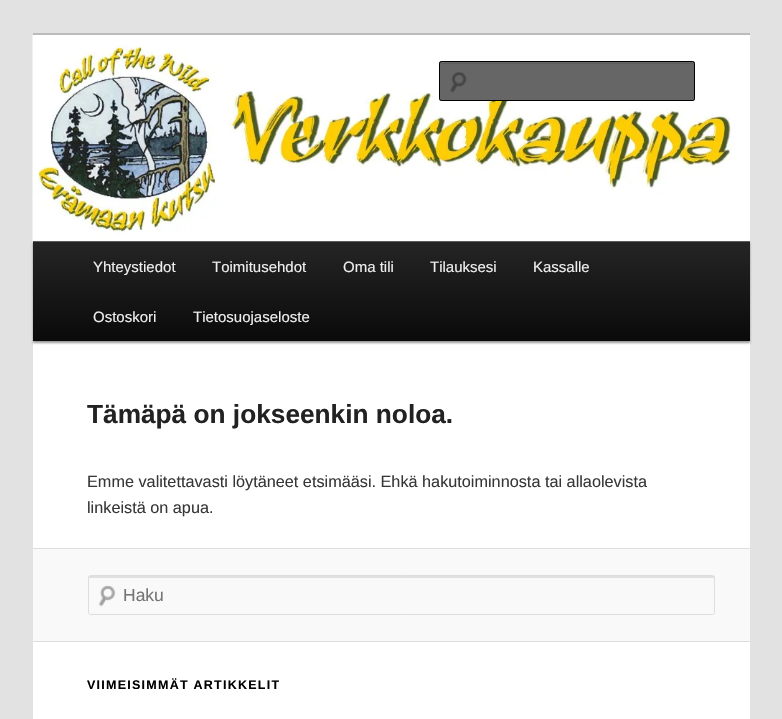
void draw(SkCanvas* c) {
SkPaint p;
p.setAntiAlias(true);
auto F=[&](const char* family, int weight, float size, bool italic = false){SkFontStyle style(weight, SkFontStyle::kNormal_Width,italic ? SkFontStyle::kItalic_Slant : SkFontStyle::kUpright_Slant);SkFont result(fontMgr->matchFamilyStyle(family, style), size);result.setSubpixel(true);return result;};
auto T=[&](const char* s, float x, float y, const SkFont& font){c->drawString(s, x, y, font, p);};
auto L=[&](const char* s, float x, float y, const SkFont& font, const SkPaint& ink, float letter, float word){std::vector<SkGlyphID> glyphs(font.countText(s, strlen(s), SkTextEncoding::kUTF8));std::vector<float> xs(glyphs.size());font.textToGlyphs(s, strlen(s), SkTextEncoding::kUTF8, glyphs);font.getXPos(glyphs, xs, x);float extra = 0;for (size_t i = 0; i < glyphs.size(); i++) {xs[i] += extra;extra += letter + word * (glyphs[i] == font.unicharToGlyph(' '));}c->drawTextBlob(SkTextBlob::MakeFromPosHGlyphs(glyphs, xs, y, font), 0, 0, ink);};
auto R=[&](float x, float y, float w, float h){c->drawRect(SkRect::MakeXYWH(x, y, w, h), p);};
auto Q=[&](float x, float y, float w, float h, float radius){c->drawRoundRect(SkRect::MakeXYWH(x, y, w, h), radius, radius, p);};
auto I=[&](const char* path, float x, float y, float w, float h){auto image = SkImages::DeferredFromEncodedData(SkData::MakeFromFileName(path));c->drawImageRect(image, SkRect::MakeXYWH(x, y, w, h), SkSamplingOptions());};
auto P=[&](const char* data, bool evenOdd = false){SkPath result = *SkParsePath::FromSVGString(data);if (evenOdd) result.setFillType(SkPathFillType::kEvenOdd);return result;};
c->clear(0xffe2e2e2);
p.setColor(0xffffffff);
R(33,341,717,378);
p.setColor(0xffbbbbbb);
R(33,33,717,2);
p.setColor(0x66000000);
p.setMaskFilter(SkMaskFilter::MakeBlur(kNormal_SkBlurStyle, 1));
c->drawRect(SkRect::MakeXYWH(33,243,717,100),p);
p.setMaskFilter(nullptr);
{
const SkColor colors[] = {0xff252525,0xff0a0a0a};
const float stops[] = {0,1};
const SkPoint ends[] = {{391,241}, {391,341}};
p.setShader(SkGradientShader::MakeLinear(ends, colors, stops, 2, SkTileMode::kClamp));
p.setAlpha(255);
}
R(33,241,717,100);
I("1.png",32,35,718,207);
p.setShader(nullptr);
p.setColor(0xff666666);
Q(439,61,256,40,2.5);
I("2.png",450,72,17,21);
p.setColor(0xff5c5c5c);
c->drawPath(P("M441 64h251c1 0 2 0 2 1v-2h-253c-1 0-1 1-1 2z"),p);
p.setStroke(true);
p.setStrokeWidth(1);
p.setColor(0xff000000);
c->drawRoundRect(SkRect::MakeXYWH(439.5,61.5,255,39),2,2,p);
auto f1 = F("Liberation Sans",400,15);
p.setStroke(false);
p.setColor(0xffeeeeee);
T("Yhteystiedot",93,272,f1);
T("Toimitusehdot",212,272,f1);
T("Oma tili",343,272,f1);
T("Tilauksesi",430,272,f1);
T("Kassalle",533,272,f1);
T("Ostoskori",93,322,f1);
T("Tietosuojaseloste",193,322,f1);
auto f2 = F("Liberation Sans",700,26.25);
p.setColor(0xff222222);
T("Tämäpä on jokseenkin noloa.",87,423,f2);
auto f3 = F("Liberation Sans",400,16.25);
p.setColor(0xff373737);
T("Emme valitettavasti löytäneet etsimääsi. Ehkä hakutoiminnosta tai allaolevista",87,487,f3);
T("linkeistä on apua.",87,513,f3);
p.setColor(0xfff9f9f9);
R(33,549,717,92);
p.setColor(0xffdddddd);
R(33,548,717,1);
R(33,641,717,1);
I("3.png",98,585,18,22);
p.setColor(0xffe0e0e0);
c->drawPath(P("M90 578h622c1 0 2 0 2 1v-3h-1h-623c-1 0-1 2-1 3c0-1 0-1 1-1z"),p);
p.setStroke(true);
p.setColor(0xffdddddd);
c->drawRoundRect(SkRect::MakeXYWH(88.5,575.5,626,39),2,2,p);
auto f4 = F("Liberation Sans",400,17.5);
p.setStroke(false);
p.setColor(0xff757575);
T("Haku",123,601,f4);
auto f5 = F("Liberation Sans",700,12.5);
p.setColor(0xff000000);
L("VIIMEISIMMÄT ARTIKKELIT",87,689,f5,p,1.25,0);
}
